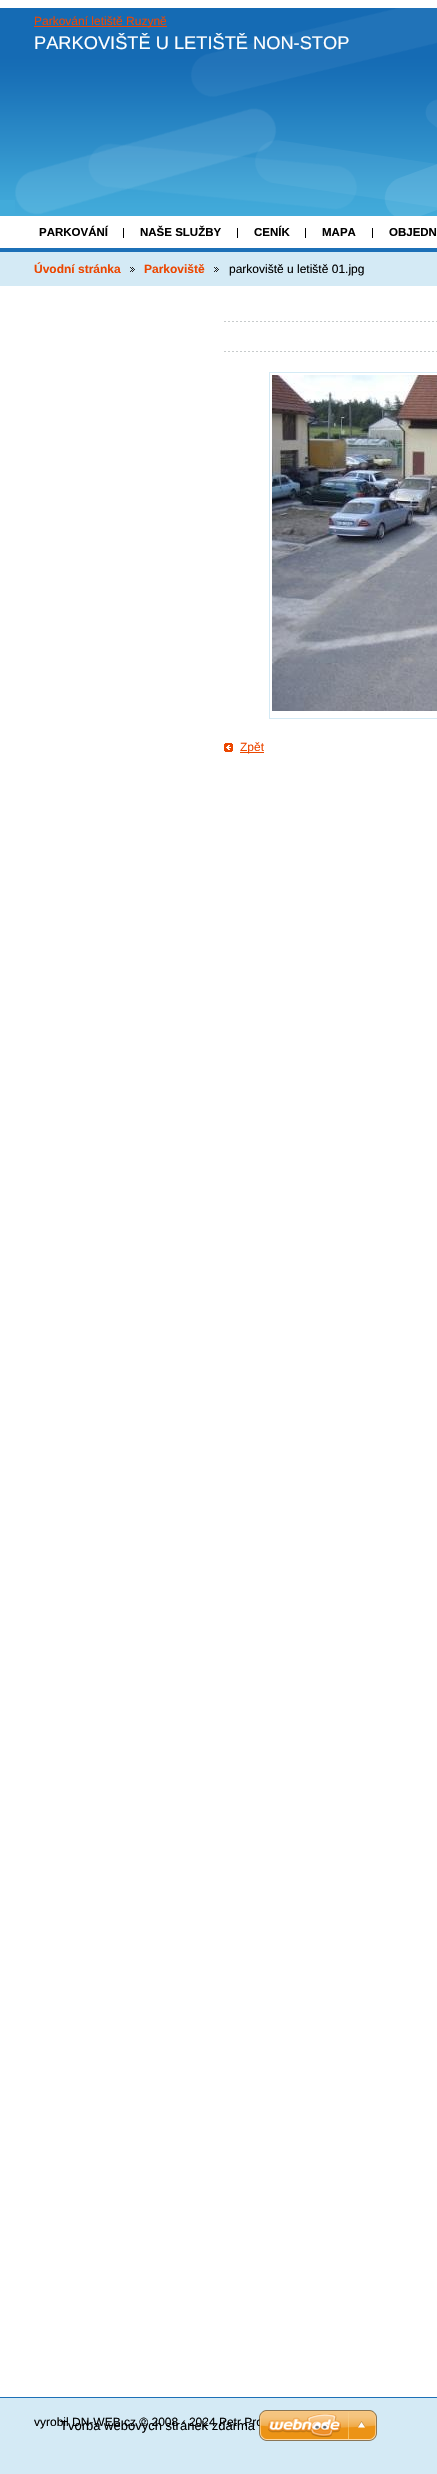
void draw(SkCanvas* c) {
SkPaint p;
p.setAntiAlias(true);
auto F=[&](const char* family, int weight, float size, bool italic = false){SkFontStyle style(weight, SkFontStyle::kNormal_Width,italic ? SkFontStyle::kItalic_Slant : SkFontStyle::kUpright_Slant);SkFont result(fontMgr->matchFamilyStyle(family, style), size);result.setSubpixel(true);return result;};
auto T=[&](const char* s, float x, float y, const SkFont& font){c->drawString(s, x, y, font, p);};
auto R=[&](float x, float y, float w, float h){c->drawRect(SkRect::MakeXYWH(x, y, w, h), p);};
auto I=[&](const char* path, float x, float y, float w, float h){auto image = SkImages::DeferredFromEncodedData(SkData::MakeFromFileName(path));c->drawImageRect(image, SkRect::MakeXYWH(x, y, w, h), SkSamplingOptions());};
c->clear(0xffd4eaf5);
p.setColor(0xffffffff);
R(0,0,437,2397);
p.setColor(0xff42abda);
R(0,200,15,16);
I("1.png",0,8,15,192);
I("2.png",15,8,422,208);
p.setColor(0xffec4700);
R(34,26,133,1);
auto f1 = F("Liberation Sans",400,12);
T("Parkování letiště Ruzyně",34,25,f1);
auto f2 = F("Liberation Sans",400,18.25);
p.setColor(0xffffffff);
T("PARKOVIŠTĚ U LETIŠTĚ NON-STOP",34,49,f2);
auto f3 = F("Liberation Sans",700,11.5);
p.setColor(0xff000000);
T("PARKOVÁNÍ",39,236,f3);
R(123,228,1,10);
T("NAŠE SLUŽBY",140,236,f3);
R(237,228,1,10);
T("CENÍK",254,236,f3);
R(305,228,1,10);
T("MAPA",322,236,f3);
R(372,228,1,10);
T("OBJEDN",389,236,f3);
p.setColor(0xffd4eaf5);
R(0,252,437,34);
p.setColor(0xff1c70b7);
R(0,248,437,4);
auto f4 = F("Liberation Sans",700,12);
p.setColor(0xffec4700);
T("Úvodní stránka",34,273,f4);
I("3.png",130,267,5,5);
T("Parkoviště",144,273,f4);
I("3.png",214,267,5,5);
p.setColor(0xff000000);
T("parkoviště u letiště 01.jpg",229,273,f1);
I("4.png",224,321,213,1);
I("4.png",224,351,213,1);
p.setStroke(true);
p.setStrokeWidth(1);
p.setColor(0xffd4eaf5);
c->drawRect(SkRect::MakeXYWH(269.5,372.5,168,346),p);
I("5.png",272,375,165,336);
I("6.png",224,743,9,9);
p.setStroke(false);
p.setColor(0xffec4700);
R(240,752,24,1);
T("Zpět",240,751,f1);
p.setColor(0xff1c70b7);
R(0,2397,437,1);
p.setColor(0xff000000);
T("vyrobil DN-WEB.cz © 2008 - 2024 Petr Pro",34,2426,f1);
auto f5 = F("Liberation Sans",400,13);
T("Tvorba webových stránek zdarma",60,2430,f5);
I("7.png",259,2410,118,31);
}
